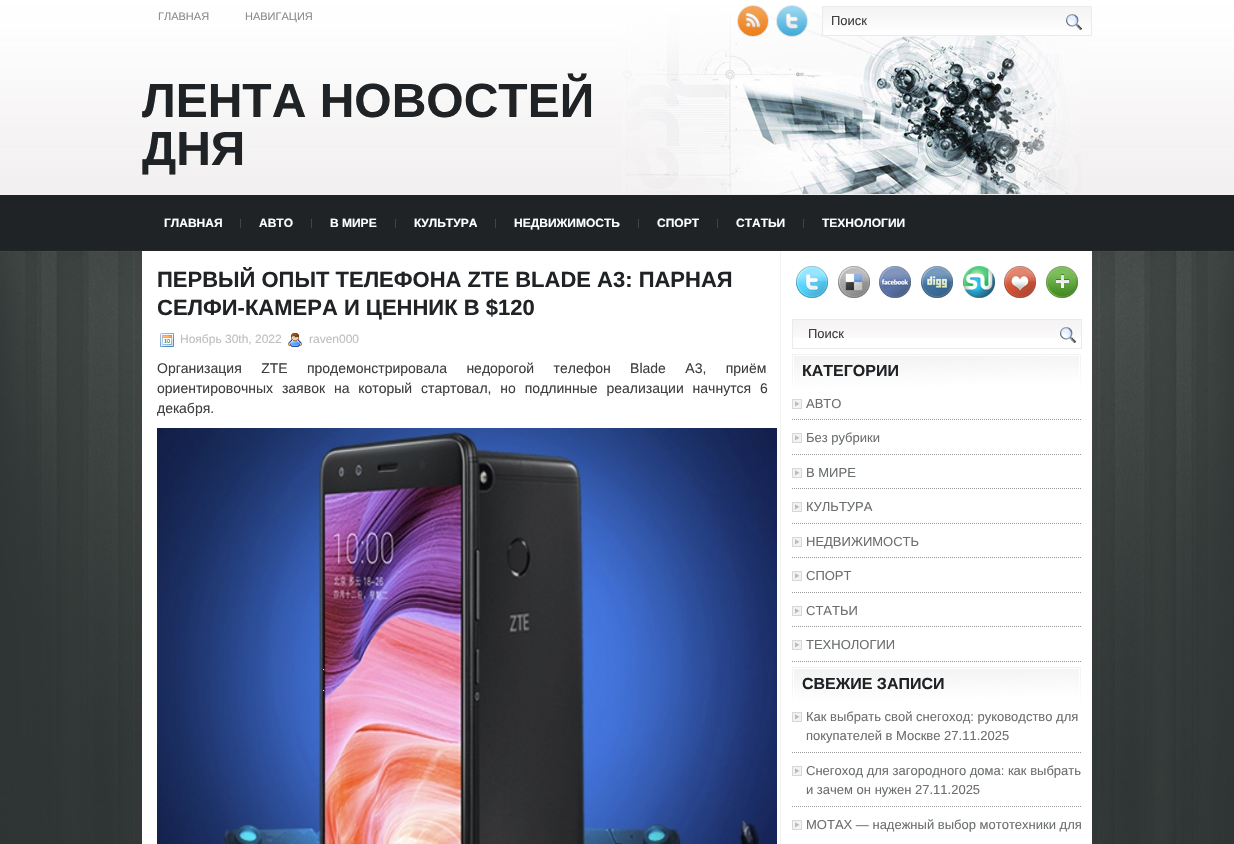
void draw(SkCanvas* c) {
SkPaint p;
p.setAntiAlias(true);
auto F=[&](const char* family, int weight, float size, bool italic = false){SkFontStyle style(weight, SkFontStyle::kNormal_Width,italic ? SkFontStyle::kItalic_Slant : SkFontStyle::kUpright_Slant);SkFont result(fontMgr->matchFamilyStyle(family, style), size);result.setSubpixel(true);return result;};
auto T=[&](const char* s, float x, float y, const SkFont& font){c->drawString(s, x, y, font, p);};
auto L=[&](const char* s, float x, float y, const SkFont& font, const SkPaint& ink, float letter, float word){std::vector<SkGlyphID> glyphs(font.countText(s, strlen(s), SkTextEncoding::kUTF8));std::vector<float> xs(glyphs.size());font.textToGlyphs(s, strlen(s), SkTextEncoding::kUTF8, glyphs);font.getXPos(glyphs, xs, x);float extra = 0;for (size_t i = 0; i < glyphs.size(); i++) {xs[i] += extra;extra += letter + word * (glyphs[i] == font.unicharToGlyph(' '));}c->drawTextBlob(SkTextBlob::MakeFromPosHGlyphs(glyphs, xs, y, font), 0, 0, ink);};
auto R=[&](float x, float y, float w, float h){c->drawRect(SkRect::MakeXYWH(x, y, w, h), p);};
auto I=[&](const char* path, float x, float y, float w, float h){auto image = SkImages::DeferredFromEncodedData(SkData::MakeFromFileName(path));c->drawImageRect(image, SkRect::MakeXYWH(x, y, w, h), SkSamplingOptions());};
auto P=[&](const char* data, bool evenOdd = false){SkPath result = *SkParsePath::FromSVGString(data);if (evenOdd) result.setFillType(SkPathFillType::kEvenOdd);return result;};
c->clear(0xffffffff);
I("1.png",0,0,1234,251);
I("2.png",0,251,1234,593);
I("3.png",622,13,459,181);
auto f1 = F("Liberation Sans",400,11);
p.setColor(0xff8a8b85);
T("ГЛАВНАЯ",158,20,f1);
T("НАВИГАЦИЯ",245,20,f1);
I("4.png",737,5,32,32);
I("5.png",776,5,32,32);
I("6.png",823,7,268,28);
p.setStroke(true);
p.setStrokeWidth(1);
p.setColor(0xffeaebec);
c->drawRect(SkRect::MakeXYWH(822.5,6.5,269,29),p);
auto f2 = F("Liberation Sans",400,13);
p.setStroke(false);
p.setColor(0xff3f3f3f);
T("Поиск",831,25,f2);
I("7.png",1066,14,16,16);
auto f3 = F("Liberation Sans",700,48);
p.setColor(0xff202326);
T("ЛЕНТА НОВОСТЕЙ",142,117,f3);
T("ДНЯ",142,165,f3);
auto f4 = F("Liberation Sans",700,12);
p.setColor(0xffffffff);
T("ГЛАВНАЯ",164,227,f4);
I("8.png",240,219,1,9);
T("АВТО",259,227,f4);
I("8.png",311,219,1,9);
T("В МИРЕ",330,227,f4);
I("8.png",395,219,1,9);
T("КУЛЬТУРА",414,227,f4);
I("8.png",495,219,1,9);
T("НЕДВИЖИМОСТЬ",514,227,f4);
I("8.png",638,219,1,9);
T("СПОРТ",657,227,f4);
I("8.png",717,219,1,9);
T("СТАТЬИ",736,227,f4);
I("8.png",803,219,1,9);
T("ТЕХНОЛОГИИ",822,227,f4);
R(142,251,950,593);
p.setColor(0xfff3f1f1);
R(780,251,1,593);
auto f5 = F("Liberation Sans",700,22);
p.setColor(0xff202326);
T("ПЕРВЫЙ ОПЫТ ТЕЛЕФОНА ZTE BLADE A3: ПАРНАЯ",157,287,f5);
T("СЕЛФИ-КАМЕРА И ЦЕННИК В $120",157,315,f5);
I("9.png",160,333,14,14);
auto f6 = F("Liberation Sans",400,12);
p.setColor(0xffbfbdbd);
T("Ноябрь 30th, 2022",180,343,f6);
I("10.png",288,333,14,14);
T("raven000",309,343,f6);
auto f7 = F("Liberation Sans",400,14);
p.setColor(0xff3f3f3f);
L("Организация ZTE продемонстрировала недорогой телефон Blade A3, приём",157,373,f7,p,0,15.5);
L("ориентировочных заявок на который",157,393,f7,p,0,5);
L("стартовал, но подлинные реализации начнутся 6",421,393,f7,p,0,5);
T("декабря.",157,413,f7);
I("11.png",157,428,620,416);
I("12.png",796,266,32,32);
I("13.png",838,266,32,32);
I("14.png",879,266,32,32);
I("15.png",921,266,32,32);
I("16.png",963,266,32,32);
I("17.png",1004,266,32,32);
I("18.png",1046,266,32,32);
I("19.png",793,320,288,18);
p.setStroke(true);
p.setColor(0xffeaebec);
c->drawRect(SkRect::MakeXYWH(792.5,319.5,289,29),p);
p.setStroke(false);
p.setColor(0xff3f3f3f);
T("Поиск",808,338,f2);
I("20.png",1060,327,16,16);
I("21.png",792,354,289,34);
auto f8 = F("Liberation Sans",700,16);
p.setColor(0xff202326);
T("КАТЕГОРИИ",802,376,f8);
I("22.png",792,399,10,10);
p.setStroke(true);
p.setColor(0xff989898);
p.setPathEffect(SkDashPathEffect::Make({{1,1}}, 0));
c->drawPath(P("M792 419.5h290"),p);
p.setPathEffect(nullptr);
p.setStroke(false);
p.setColor(0xff6b6f6e);
T("АВТО",806,408,f2);
I("22.png",792,433,10,10);
p.setStroke(true);
p.setColor(0xff989898);
p.setPathEffect(SkDashPathEffect::Make({{1,1}}, 0));
c->drawPath(P("M792 454.5h290"),p);
p.setPathEffect(nullptr);
p.setStroke(false);
p.setColor(0xff6b6f6e);
T("Без рубрики",806,442,f2);
I("22.png",792,468,10,10);
p.setStroke(true);
p.setColor(0xff989898);
p.setPathEffect(SkDashPathEffect::Make({{1,1}}, 0));
c->drawPath(P("M792 488.5h290"),p);
p.setPathEffect(nullptr);
p.setStroke(false);
p.setColor(0xff6b6f6e);
T("В МИРЕ",806,477,f2);
I("22.png",792,502,10,10);
p.setStroke(true);
p.setColor(0xff989898);
p.setPathEffect(SkDashPathEffect::Make({{1,1}}, 0));
c->drawPath(P("M792 523.5h290"),p);
p.setPathEffect(nullptr);
p.setStroke(false);
p.setColor(0xff6b6f6e);
T("КУЛЬТУРА",806,511,f2);
I("22.png",792,537,10,10);
p.setStroke(true);
p.setColor(0xff989898);
p.setPathEffect(SkDashPathEffect::Make({{1,1}}, 0));
c->drawPath(P("M792 557.5h290"),p);
p.setPathEffect(nullptr);
p.setStroke(false);
p.setColor(0xff6b6f6e);
T("НЕДВИЖИМОСТЬ",806,546,f2);
I("22.png",792,571,10,10);
p.setStroke(true);
p.setColor(0xff989898);
p.setPathEffect(SkDashPathEffect::Make({{1,1}}, 0));
c->drawPath(P("M792 592.5h290"),p);
p.setPathEffect(nullptr);
p.setStroke(false);
p.setColor(0xff6b6f6e);
T("СПОРТ",806,580,f2);
I("22.png",792,606,10,10);
p.setStroke(true);
p.setColor(0xff989898);
p.setPathEffect(SkDashPathEffect::Make({{1,1}}, 0));
c->drawPath(P("M792 626.5h290"),p);
p.setPathEffect(nullptr);
p.setStroke(false);
p.setColor(0xff6b6f6e);
T("СТАТЬИ",806,615,f2);
I("22.png",792,640,10,10);
p.setStroke(true);
p.setColor(0xff989898);
p.setPathEffect(SkDashPathEffect::Make({{1,1}}, 0));
c->drawPath(P("M792 661.5h290"),p);
p.setPathEffect(nullptr);
p.setStroke(false);
p.setColor(0xff6b6f6e);
T("ТЕХНОЛОГИИ",806,649,f2);
I("21.png",792,667,289,34);
p.setColor(0xff202326);
T("СВЕЖИЕ ЗАПИСИ",802,689,f8);
I("22.png",792,712,10,10);
p.setStroke(true);
p.setColor(0xff989898);
p.setPathEffect(SkDashPathEffect::Make({{1,1}}, 0));
c->drawPath(P("M792 752.5h290"),p);
p.setPathEffect(nullptr);
p.setStroke(false);
p.setColor(0xff6b6f6e);
T("Как выбрать свой снегоход: руководство для",806,721,f2);
T("покупателей в Москве 27.11.2025",806,740,f2);
I("22.png",792,766,10,10);
p.setStroke(true);
p.setColor(0xff989898);
p.setPathEffect(SkDashPathEffect::Make({{1,1}}, 0));
c->drawPath(P("M792 806.5h290"),p);
p.setPathEffect(nullptr);
p.setStroke(false);
p.setColor(0xff6b6f6e);
T("Снегоход для загородного дома: как выбрать",806,775,f2);
T("и зачем он нужен 27.11.2025",806,794,f2);
I("22.png",792,820,10,10);
T("MOTAX — надежный выбор мототехники для",806,829,f2);
}
